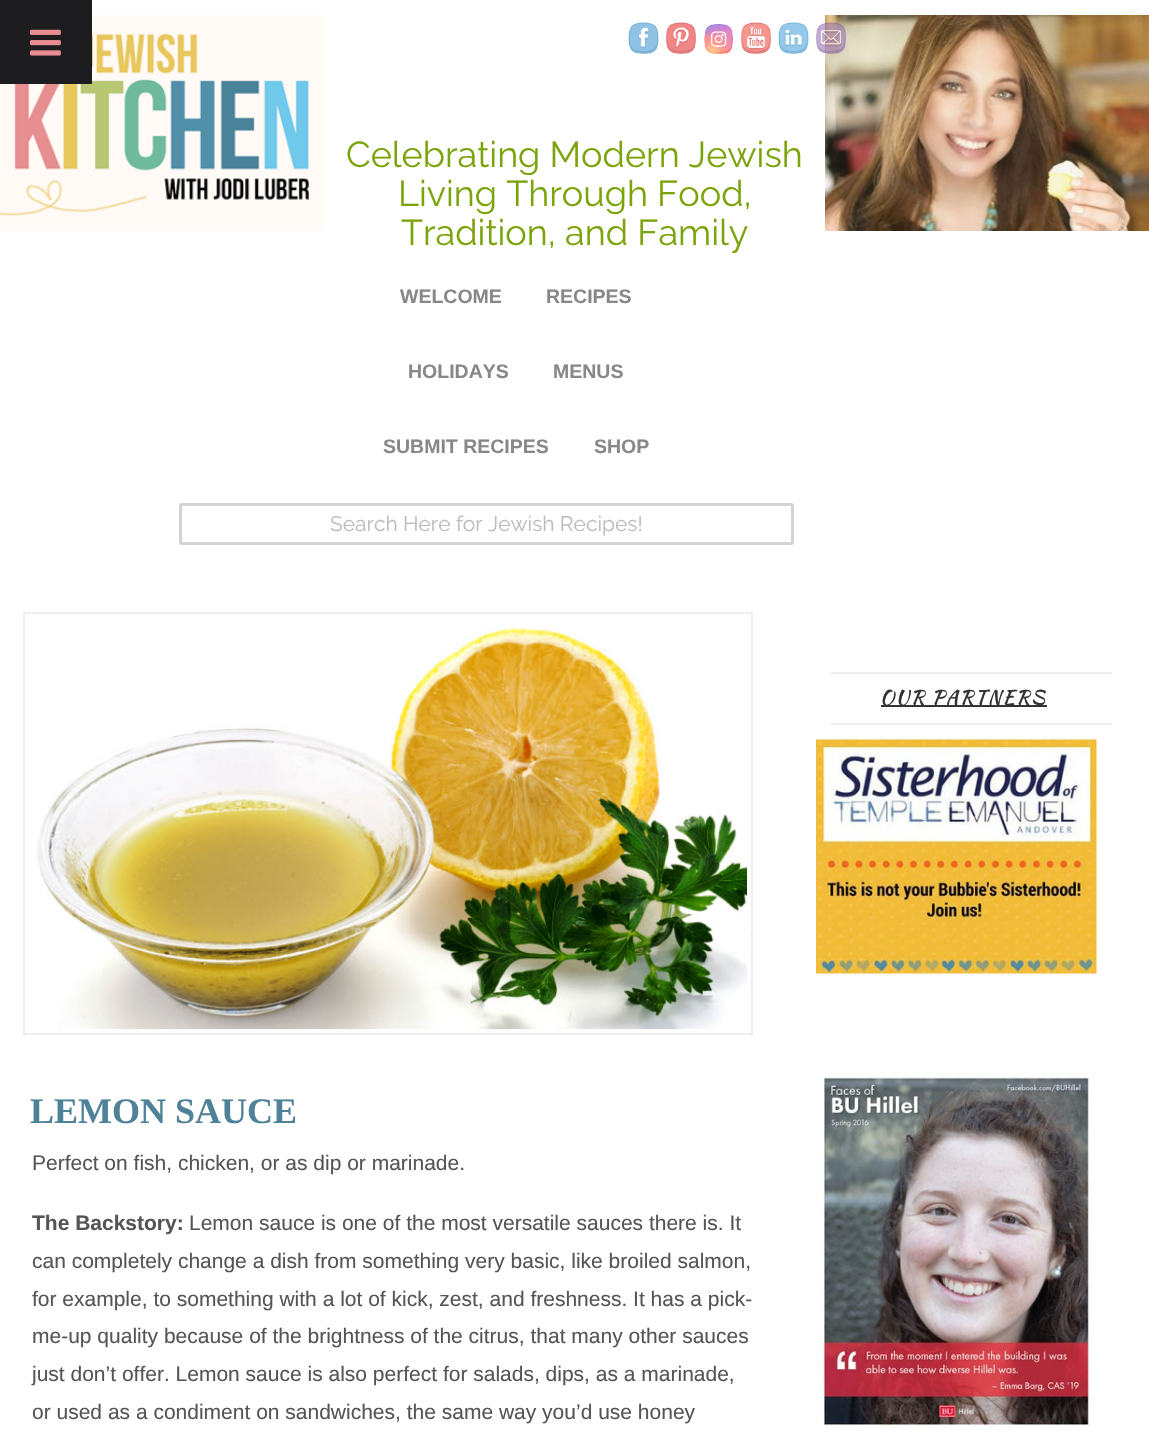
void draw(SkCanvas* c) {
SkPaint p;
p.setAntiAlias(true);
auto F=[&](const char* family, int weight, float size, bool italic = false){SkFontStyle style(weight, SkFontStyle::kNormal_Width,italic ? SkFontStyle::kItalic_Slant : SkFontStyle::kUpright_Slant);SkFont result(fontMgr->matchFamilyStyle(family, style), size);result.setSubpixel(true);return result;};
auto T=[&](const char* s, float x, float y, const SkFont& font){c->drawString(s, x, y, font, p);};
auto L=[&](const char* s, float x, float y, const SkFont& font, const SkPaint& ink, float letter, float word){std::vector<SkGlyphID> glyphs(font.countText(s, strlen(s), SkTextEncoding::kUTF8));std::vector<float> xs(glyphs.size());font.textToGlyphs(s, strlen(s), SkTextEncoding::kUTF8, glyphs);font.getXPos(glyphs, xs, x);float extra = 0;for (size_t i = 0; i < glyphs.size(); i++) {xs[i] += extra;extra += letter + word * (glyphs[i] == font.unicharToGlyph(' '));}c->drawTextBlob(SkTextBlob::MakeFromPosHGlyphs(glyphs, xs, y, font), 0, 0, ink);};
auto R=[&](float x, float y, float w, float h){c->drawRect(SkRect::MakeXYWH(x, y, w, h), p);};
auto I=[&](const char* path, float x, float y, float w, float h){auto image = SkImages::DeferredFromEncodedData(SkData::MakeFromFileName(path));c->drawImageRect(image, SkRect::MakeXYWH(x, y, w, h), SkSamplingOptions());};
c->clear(0xffffffff);
I("2.png",0,15,324,216);
p.setColor(0xff1d1d20);
R(0,0,92,84);
I("1.png",30,29,31,27);
I("3.png",628,22,31,32);
I("4.png",666,22,30,32);
I("5.png",704,24,29,30);
I("6.png",741,22,30,32);
I("7.png",778,22,31,32);
I("9.png",825,15,324,216);
I("8.png",816,22,30,32);
auto f1 = F("Raleway",400,36);
p.setColor(0xff7ba40a);
T("Celebrating Modern Jewish",346,167,f1);
T("Living Through Food,",398,206,f1);
T("Tradition, and Family",401,245,f1);
auto f2 = F("Liberation Sans",700,19.5);
p.setColor(0xff888888);
T("WELCOME",400,303,f2);
T("RECIPES",546,303,f2);
T("HOLIDAYS",408,378,f2);
T("MENUS",553,378,f2);
T("SUBMIT RECIPES",383,453,f2);
T("SHOP",594,453,f2);
p.setStroke(true);
p.setStrokeWidth(3);
p.setColor(0xffd3d3d3);
c->drawRoundRect(SkRect::MakeXYWH(180.5,504.5,612,39),1.5,1.5,p);
auto f3 = F("Raleway",400,21);
p.setStroke(false);
p.setColor(0xffbdbcbc);
T("Search Here for Jewish Recipes!",330,531,f3);
p.setColor(0xffeeeeee);
R(831,672,281,2);
R(831,723,281,2);
p.setColor(0xff333333);
R(881,705,166,2);
auto f4 = F("Kaushan Script",400,19.5);
L("OUR PARTNERS",880,704,f4,p,1.5,0);
I("10.png",816,739,281,235);
I("11.png",816,1076,277,350);
p.setStroke(true);
p.setStrokeWidth(2);
p.setColor(0xffeeeeee);
c->drawRect(SkRect::MakeXYWH(24,613,728,421),p);
I("12.png",37,626,710,403);
auto f5 = F("Liberation Serif",700,36);
p.setStroke(false);
p.setColor(0xff4f8299);
T("LEMON SAUCE",30,1123,f5);
auto f6 = F("Liberation Sans",400,21);
p.setColor(0xff555555);
T("Perfect on fish, chicken, or as dip or marinade.",32,1170,f6);
auto f7 = F("Liberation Sans",700,21);
T("The Backstory:",32,1230,f7);
T("Lemon sauce is one of the most versatile sauces there is. It",189,1230,f6);
T("can completely change a dish from something very basic, like broiled salmon,",32,1268,f6);
T("for example, to something with a lot of kick, zest, and freshness. It has a pick-",32,1306,f6);
T("me-up quality because of the brightness of the citrus, that many other sauces",32,1343,f6);
T("just don’t offer. Lemon sauce is also perfect for salads, dips, as a marinade,",32,1381,f6);
T("or used as a condiment on sandwiches, the same way you’d use honey",32,1419,f6);
}
